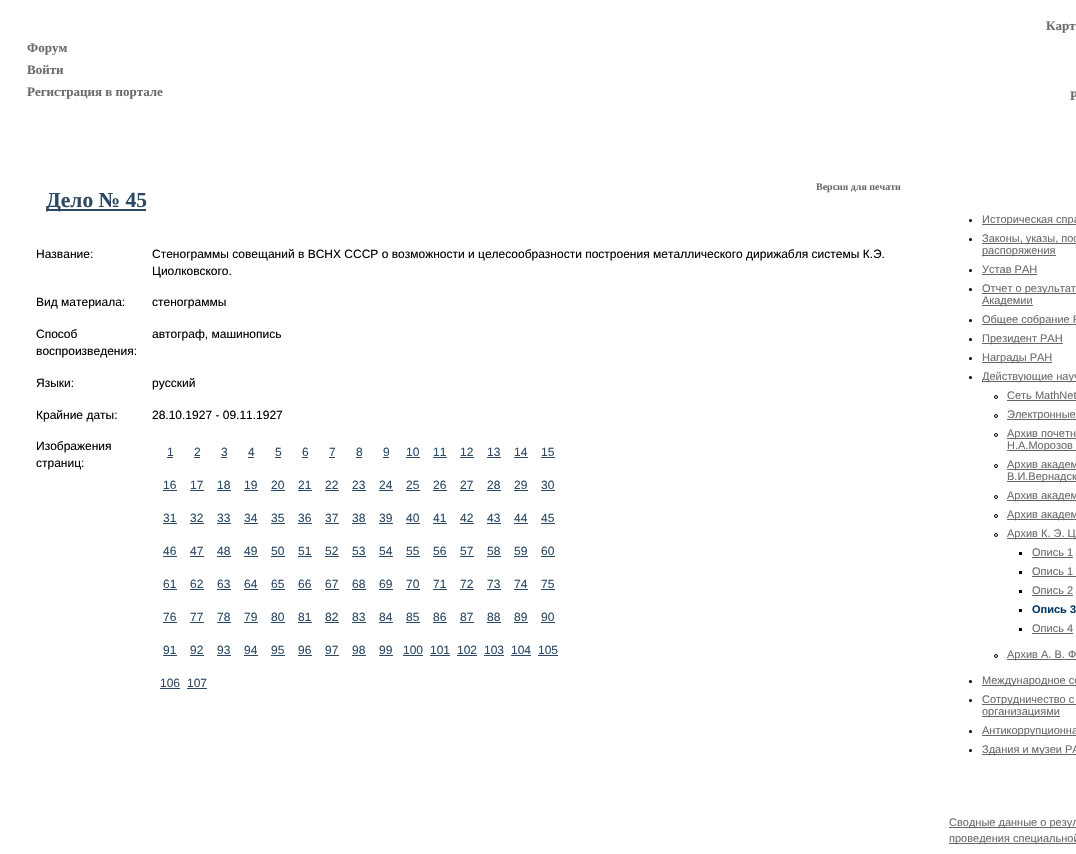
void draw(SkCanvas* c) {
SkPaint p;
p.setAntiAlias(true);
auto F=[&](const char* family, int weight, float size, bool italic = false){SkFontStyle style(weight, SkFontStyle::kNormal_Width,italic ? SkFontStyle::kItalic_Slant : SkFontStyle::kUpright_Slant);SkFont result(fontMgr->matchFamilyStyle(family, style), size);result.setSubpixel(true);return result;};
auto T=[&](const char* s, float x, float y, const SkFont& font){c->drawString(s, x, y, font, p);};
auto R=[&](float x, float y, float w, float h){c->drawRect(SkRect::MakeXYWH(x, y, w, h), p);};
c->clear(0xffffffff);
auto f1 = F("Liberation Serif",700,13);
p.setColor(0xff6b6b6b);
T("Форум",27,52,f1);
T("Войти",27,74,f1);
T("Регистрация в портале",27,96,f1);
T("Карт",1046,30,f1);
T("Р",1070,100,f1);
auto f2 = F("Liberation Serif",700,10);
T("Версия для печати",816,190,f2);
p.setColor(0xff2b4965);
R(46,209,100,2);
auto f3 = F("Liberation Serif",700,21.5);
T("Дело № 45",46,207,f3);
auto f4 = F("Liberation Sans",400,12);
p.setColor(0xff000000);
T("Название:",36,258,f4);
T("Стенограммы совещаний в ВСНХ СССР о возможности и целесообразности построения металлического дирижабля системы К.Э.",152,258,f4);
T("Циолковского.",152,275,f4);
T("Вид материала:",36,306,f4);
T("стенограммы",152,306,f4);
T("Способ",36,338,f4);
T("воспроизведения:",36,355,f4);
T("автограф, машинопись",152,338,f4);
T("Языки:",36,387,f4);
T("русский",152,387,f4);
T("Крайние даты:",36,419,f4);
T("28.10.1927 - 09.11.1927",152,419,f4);
T("Изображения",36,450,f4);
T("страниц:",36,467,f4);
p.setColor(0xff2b4965);
T("1",167,456,f4);
R(167,457,6,1);
T("2",194,456,f4);
R(194,457,6,1);
T("3",221,456,f4);
R(221,457,6,1);
T("4",248,456,f4);
R(248,457,6,1);
T("5",275,456,f4);
R(275,457,6,1);
T("6",302,456,f4);
R(302,457,6,1);
T("7",329,456,f4);
R(329,457,6,1);
T("8",356,456,f4);
R(356,457,6,1);
T("9",383,456,f4);
R(383,457,6,1);
T("10",406,456,f4);
R(406,457,14,1);
T("11",433,456,f4);
R(433,457,14,1);
T("12",460,456,f4);
R(460,457,14,1);
T("13",487,456,f4);
R(487,457,14,1);
T("14",514,456,f4);
R(514,457,14,1);
T("15",541,456,f4);
R(541,457,14,1);
T("16",163,489,f4);
R(163,490,14,1);
T("17",190,489,f4);
R(190,490,14,1);
T("18",217,489,f4);
R(217,490,14,1);
T("19",244,489,f4);
R(244,490,14,1);
T("20",271,489,f4);
R(271,490,14,1);
T("21",298,489,f4);
R(298,490,14,1);
T("22",325,489,f4);
R(325,490,14,1);
T("23",352,489,f4);
R(352,490,14,1);
T("24",379,489,f4);
R(379,490,14,1);
T("25",406,489,f4);
R(406,490,14,1);
T("26",433,489,f4);
R(433,490,14,1);
T("27",460,489,f4);
R(460,490,14,1);
T("28",487,489,f4);
R(487,490,14,1);
T("29",514,489,f4);
R(514,490,14,1);
T("30",541,489,f4);
R(541,490,14,1);
T("31",163,522,f4);
R(163,523,14,1);
T("32",190,522,f4);
R(190,523,14,1);
T("33",217,522,f4);
R(217,523,14,1);
T("34",244,522,f4);
R(244,523,14,1);
T("35",271,522,f4);
R(271,523,14,1);
T("36",298,522,f4);
R(298,523,14,1);
T("37",325,522,f4);
R(325,523,14,1);
T("38",352,522,f4);
R(352,523,14,1);
T("39",379,522,f4);
R(379,523,14,1);
T("40",406,522,f4);
R(406,523,14,1);
T("41",433,522,f4);
R(433,523,14,1);
T("42",460,522,f4);
R(460,523,14,1);
T("43",487,522,f4);
R(487,523,14,1);
T("44",514,522,f4);
R(514,523,14,1);
T("45",541,522,f4);
R(541,523,14,1);
T("46",163,555,f4);
R(163,556,14,1);
T("47",190,555,f4);
R(190,556,14,1);
T("48",217,555,f4);
R(217,556,14,1);
T("49",244,555,f4);
R(244,556,14,1);
T("50",271,555,f4);
R(271,556,14,1);
T("51",298,555,f4);
R(298,556,14,1);
T("52",325,555,f4);
R(325,556,14,1);
T("53",352,555,f4);
R(352,556,14,1);
T("54",379,555,f4);
R(379,556,14,1);
T("55",406,555,f4);
R(406,556,14,1);
T("56",433,555,f4);
R(433,556,14,1);
T("57",460,555,f4);
R(460,556,14,1);
T("58",487,555,f4);
R(487,556,14,1);
T("59",514,555,f4);
R(514,556,14,1);
T("60",541,555,f4);
R(541,556,14,1);
T("61",163,588,f4);
R(163,589,14,1);
T("62",190,588,f4);
R(190,589,14,1);
T("63",217,588,f4);
R(217,589,14,1);
T("64",244,588,f4);
R(244,589,14,1);
T("65",271,588,f4);
R(271,589,14,1);
T("66",298,588,f4);
R(298,589,14,1);
T("67",325,588,f4);
R(325,589,14,1);
T("68",352,588,f4);
R(352,589,14,1);
T("69",379,588,f4);
R(379,589,14,1);
T("70",406,588,f4);
R(406,589,14,1);
T("71",433,588,f4);
R(433,589,14,1);
T("72",460,588,f4);
R(460,589,14,1);
T("73",487,588,f4);
R(487,589,14,1);
T("74",514,588,f4);
R(514,589,14,1);
T("75",541,588,f4);
R(541,589,14,1);
T("76",163,621,f4);
R(163,622,14,1);
T("77",190,621,f4);
R(190,622,14,1);
T("78",217,621,f4);
R(217,622,14,1);
T("79",244,621,f4);
R(244,622,14,1);
T("80",271,621,f4);
R(271,622,14,1);
T("81",298,621,f4);
R(298,622,14,1);
T("82",325,621,f4);
R(325,622,14,1);
T("83",352,621,f4);
R(352,622,14,1);
T("84",379,621,f4);
R(379,622,14,1);
T("85",406,621,f4);
R(406,622,14,1);
T("86",433,621,f4);
R(433,622,14,1);
T("87",460,621,f4);
R(460,622,14,1);
T("88",487,621,f4);
R(487,622,14,1);
T("89",514,621,f4);
R(514,622,14,1);
T("90",541,621,f4);
R(541,622,14,1);
T("91",163,654,f4);
R(163,655,14,1);
T("92",190,654,f4);
R(190,655,14,1);
T("93",217,654,f4);
R(217,655,14,1);
T("94",244,654,f4);
R(244,655,14,1);
T("95",271,654,f4);
R(271,655,14,1);
T("96",298,654,f4);
R(298,655,14,1);
T("97",325,654,f4);
R(325,655,14,1);
T("98",352,654,f4);
R(352,655,14,1);
T("99",379,654,f4);
R(379,655,14,1);
T("100",403,654,f4);
R(403,655,20,1);
T("101",430,654,f4);
R(430,655,20,1);
T("102",457,654,f4);
R(457,655,20,1);
T("103",484,654,f4);
R(484,655,20,1);
T("104",511,654,f4);
R(511,655,20,1);
T("105",538,654,f4);
R(538,655,20,1);
T("106",160,687,f4);
R(160,688,20,1);
T("107",187,687,f4);
R(187,688,20,1);
p.setColor(0xff000000);
c->drawCircle(970.5,220.5,1.5,p);
p.setColor(0xff666666);
R(982,224,94,1);
auto f5 = F("Liberation Sans",400,11);
p.setColor(0xff6b6b6b);
T("Историческая спра",982,223,f5);
p.setColor(0xff000000);
c->drawCircle(970.5,239.5,1.5,p);
p.setColor(0xff666666);
R(982,243,94,1);
p.setColor(0xff6b6b6b);
T("Законы, указы, пос",982,242,f5);
p.setColor(0xff666666);
R(982,255,74,1);
p.setColor(0xff6b6b6b);
T("распоряжения",982,254,f5);
p.setColor(0xff000000);
c->drawCircle(970.5,270.5,1.5,p);
p.setColor(0xff6b6b6b);
T("Устав РАН",982,273,f5);
p.setColor(0xff666666);
R(982,274,55,1);
p.setColor(0xff000000);
c->drawCircle(970.5,289.5,1.5,p);
p.setColor(0xff666666);
R(982,293,94,1);
p.setColor(0xff6b6b6b);
T("Отчет о результат",982,292,f5);
p.setColor(0xff666666);
R(982,305,51,1);
p.setColor(0xff6b6b6b);
T("Академии",982,304,f5);
p.setColor(0xff000000);
c->drawCircle(970.5,320.5,1.5,p);
p.setColor(0xff666666);
R(982,324,94,1);
p.setColor(0xff6b6b6b);
T("Общее собрание Р",982,323,f5);
p.setColor(0xff000000);
c->drawCircle(970.5,339.5,1.5,p);
p.setColor(0xff666666);
R(982,343,81,1);
p.setColor(0xff6b6b6b);
T("Президент РАН",982,342,f5);
p.setColor(0xff000000);
c->drawCircle(970.5,358.5,1.5,p);
p.setColor(0xff666666);
R(982,362,70,1);
p.setColor(0xff6b6b6b);
T("Награды РАН",982,361,f5);
p.setColor(0xff000000);
c->drawCircle(970.5,377.5,1.5,p);
p.setColor(0xff666666);
R(982,381,94,1);
p.setColor(0xff6b6b6b);
T("Действующие науч",982,380,f5);
p.setStroke(true);
p.setStrokeWidth(1);
p.setColor(0xff000000);
c->drawCircle(996,397,1.5,p);
p.setStroke(false);
p.setColor(0xff6b6b6b);
T("Сеть MathNet",1007,399,f5);
p.setColor(0xff666666);
R(1007,400,69,1);
p.setStroke(true);
p.setColor(0xff000000);
c->drawCircle(996,416,1.5,p);
p.setStroke(false);
p.setColor(0xff666666);
R(1007,419,69,1);
p.setColor(0xff6b6b6b);
T("Электронные",1007,418,f5);
p.setStroke(true);
p.setColor(0xff000000);
c->drawCircle(996,435,1.5,p);
p.setStroke(false);
p.setColor(0xff666666);
R(1007,438,69,1);
p.setColor(0xff6b6b6b);
T("Архив почетн",1007,437,f5);
p.setColor(0xff666666);
R(1007,450,69,1);
p.setColor(0xff6b6b6b);
T("Н.А.Морозов",1007,449,f5);
p.setStroke(true);
p.setColor(0xff000000);
c->drawCircle(996,466,1.5,p);
p.setStroke(false);
p.setColor(0xff666666);
R(1007,469,69,1);
p.setColor(0xff6b6b6b);
T("Архив академ",1007,468,f5);
p.setColor(0xff666666);
R(1007,481,69,1);
p.setColor(0xff6b6b6b);
T("В.И.Вернадск",1007,480,f5);
p.setStroke(true);
p.setColor(0xff000000);
c->drawCircle(996,497,1.5,p);
p.setStroke(false);
p.setColor(0xff666666);
R(1007,500,69,1);
p.setColor(0xff6b6b6b);
T("Архив академ",1007,499,f5);
p.setStroke(true);
p.setColor(0xff000000);
c->drawCircle(996,516,1.5,p);
p.setStroke(false);
p.setColor(0xff666666);
R(1007,519,69,1);
p.setColor(0xff6b6b6b);
T("Архив академ",1007,518,f5);
p.setStroke(true);
p.setColor(0xff000000);
c->drawCircle(996,535,1.5,p);
p.setStroke(false);
p.setColor(0xff666666);
R(1007,538,69,1);
p.setColor(0xff6b6b6b);
T("Архив К. Э. Ц",1007,537,f5);
p.setColor(0xff000000);
R(1019,552,3,3);
p.setColor(0xff6b6b6b);
T("Опись 1",1032,556,f5);
p.setColor(0xff666666);
R(1032,557,41,1);
p.setColor(0xff000000);
R(1019,571,3,3);
p.setColor(0xff6b6b6b);
T("Опись 1",1032,575,f5);
p.setColor(0xff666666);
R(1032,576,44,1);
p.setColor(0xff000000);
R(1019,590,3,3);
p.setColor(0xff6b6b6b);
T("Опись 2",1032,594,f5);
p.setColor(0xff666666);
R(1032,595,41,1);
p.setColor(0xff000000);
R(1019,609,3,3);
auto f6 = F("Liberation Sans",700,11);
p.setColor(0xff023a67);
T("Опись 3",1032,613,f6);
p.setColor(0xff000000);
R(1019,628,3,3);
p.setColor(0xff6b6b6b);
T("Опись 4",1032,632,f5);
p.setColor(0xff666666);
R(1032,633,41,1);
p.setStroke(true);
p.setColor(0xff000000);
c->drawCircle(996,656,1.5,p);
p.setStroke(false);
p.setColor(0xff666666);
R(1007,659,69,1);
p.setColor(0xff6b6b6b);
T("Архив А. В. Ф",1007,658,f5);
p.setColor(0xff000000);
c->drawCircle(970.5,681.5,1.5,p);
p.setColor(0xff666666);
R(982,685,94,1);
p.setColor(0xff6b6b6b);
T("Международное со",982,684,f5);
p.setColor(0xff000000);
c->drawCircle(970.5,700.5,1.5,p);
p.setColor(0xff666666);
R(982,704,94,1);
p.setColor(0xff6b6b6b);
T("Сотрудничество с",982,703,f5);
p.setColor(0xff666666);
R(982,716,78,1);
p.setColor(0xff6b6b6b);
T("организациями",982,715,f5);
p.setColor(0xff000000);
c->drawCircle(970.5,731.5,1.5,p);
p.setColor(0xff666666);
R(982,735,94,1);
p.setColor(0xff6b6b6b);
T("Антикоррупционна",982,734,f5);
p.setColor(0xff000000);
c->drawCircle(970.5,750.5,1.5,p);
p.setColor(0xff666666);
R(982,754,94,1);
p.setColor(0xff6b6b6b);
T("Здания и музеи РА",982,753,f5);
p.setColor(0xff666666);
R(949,827,127,1);
p.setColor(0xff6b6b6b);
T("Сводные данные о резул",949,826,f5);
p.setColor(0xff666666);
R(949,843,127,1);
p.setColor(0xff6b6b6b);
T("проведения специальной",949,842,f5);
}
